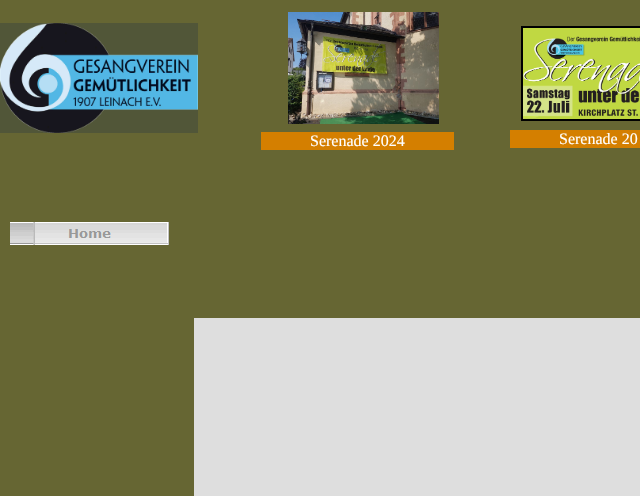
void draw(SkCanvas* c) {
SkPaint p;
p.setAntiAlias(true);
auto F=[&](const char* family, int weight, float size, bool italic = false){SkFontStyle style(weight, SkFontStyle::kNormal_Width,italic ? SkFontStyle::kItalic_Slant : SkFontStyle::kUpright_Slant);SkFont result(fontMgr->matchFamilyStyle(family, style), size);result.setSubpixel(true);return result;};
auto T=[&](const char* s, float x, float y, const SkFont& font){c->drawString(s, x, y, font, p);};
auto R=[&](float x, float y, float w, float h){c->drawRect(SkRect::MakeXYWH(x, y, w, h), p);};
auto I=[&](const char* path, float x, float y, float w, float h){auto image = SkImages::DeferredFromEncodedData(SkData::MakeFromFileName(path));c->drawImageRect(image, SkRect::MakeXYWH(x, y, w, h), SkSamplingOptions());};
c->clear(0xff666633);
I("1.png",0,23,198,110);
I("2.png",288,12,151,112);
p.setColor(0xffd47f00);
R(261,132,193,18);
auto f1 = F("Liberation Serif",400,16);
p.setColor(0xffffffff);
T("Serenade 2024",310,146,f1);
p.setStroke(true);
p.setStrokeWidth(2);
p.setColor(0xff000000);
c->drawRect(SkRect::MakeXYWH(522,27,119,93),p);
I("3.png",523,28,117,91);
p.setStroke(false);
p.setColor(0xffd47f00);
R(510,130,130,18);
p.setColor(0xffffffff);
T("Serenade 20",559,144,f1);
I("4.png",10,222,159,23);
p.setColor(0xffdedede);
R(194,318,446,178);
}
